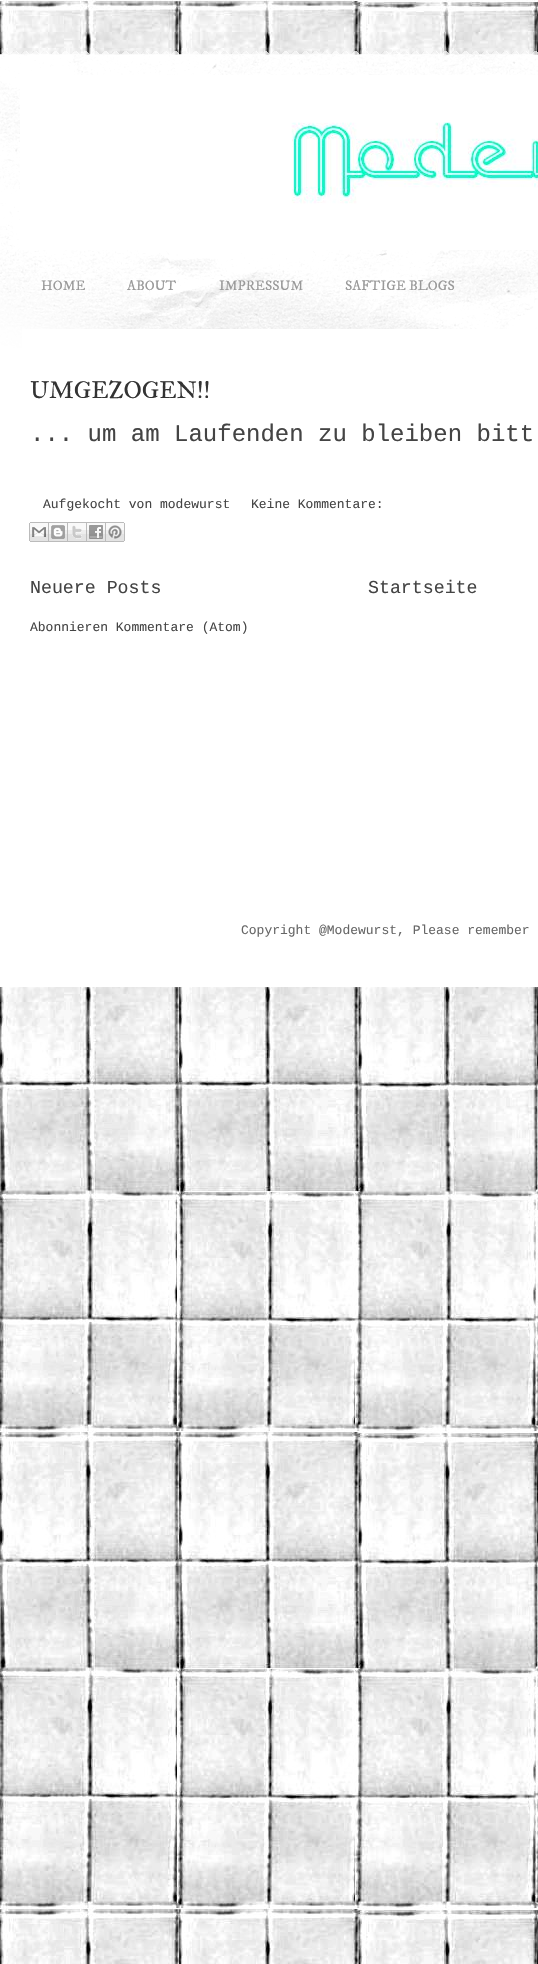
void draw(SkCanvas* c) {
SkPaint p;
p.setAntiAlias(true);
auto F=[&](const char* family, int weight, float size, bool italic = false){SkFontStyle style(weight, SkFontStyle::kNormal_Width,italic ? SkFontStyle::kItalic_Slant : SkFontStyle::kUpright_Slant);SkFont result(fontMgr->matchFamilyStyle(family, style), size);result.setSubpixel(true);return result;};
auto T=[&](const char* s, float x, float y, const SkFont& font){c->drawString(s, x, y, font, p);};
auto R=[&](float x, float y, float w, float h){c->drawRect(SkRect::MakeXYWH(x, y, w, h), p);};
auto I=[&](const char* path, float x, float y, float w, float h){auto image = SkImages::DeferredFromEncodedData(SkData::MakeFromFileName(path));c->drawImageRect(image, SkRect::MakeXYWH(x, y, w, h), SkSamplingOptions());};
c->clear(0xffffffff);
I("1.png",0,0,538,1964);
I("2.png",0,51,538,4);
p.setColor(0xffffffff);
R(0,55,538,932);
I("3.png",0,55,538,298);
I("4.png",20,75,518,175);
auto f1 = F("IM FELL DW Pica SC",400,14);
p.setColor(0xff999999);
T("HOME",41,290,f1);
T("ABOUT",127,290,f1);
T("IMPRESSUM",219,290,f1);
T("SAFTIGE BLOGS",345,290,f1);
p.setColor(0xffffffff);
R(22,329,516,24);
auto f2 = F("IM FELL Great Primer SC",400,24);
p.setColor(0xff333333);
T("UMGEZOGEN!!",30,398,f2);
auto f3 = F("Liberation Mono",400,24);
p.setColor(0xff444444);
T("... um am Laufenden zu bleiben bitt",30,441,f3);
auto f4 = F("Liberation Mono",400,13);
T("Aufgekocht von modewurst",43,508,f4);
T("Keine Kommentare:",251,508,f4);
I("5.png",29,522,20,20);
I("6.png",49,522,19,20);
I("7.png",68,522,19,20);
I("8.png",87,522,19,20);
I("9.png",106,522,19,20);
auto f5 = F("Liberation Mono",400,18.25);
T("Neuere Posts",30,593,f5);
T("Startseite",368,593,f5);
T("Abonnieren Kommentare (Atom)",30,631,f4);
p.setColor(0xff666666);
T("Copyright @Modewurst, Please remember",241,934,f4);
}
